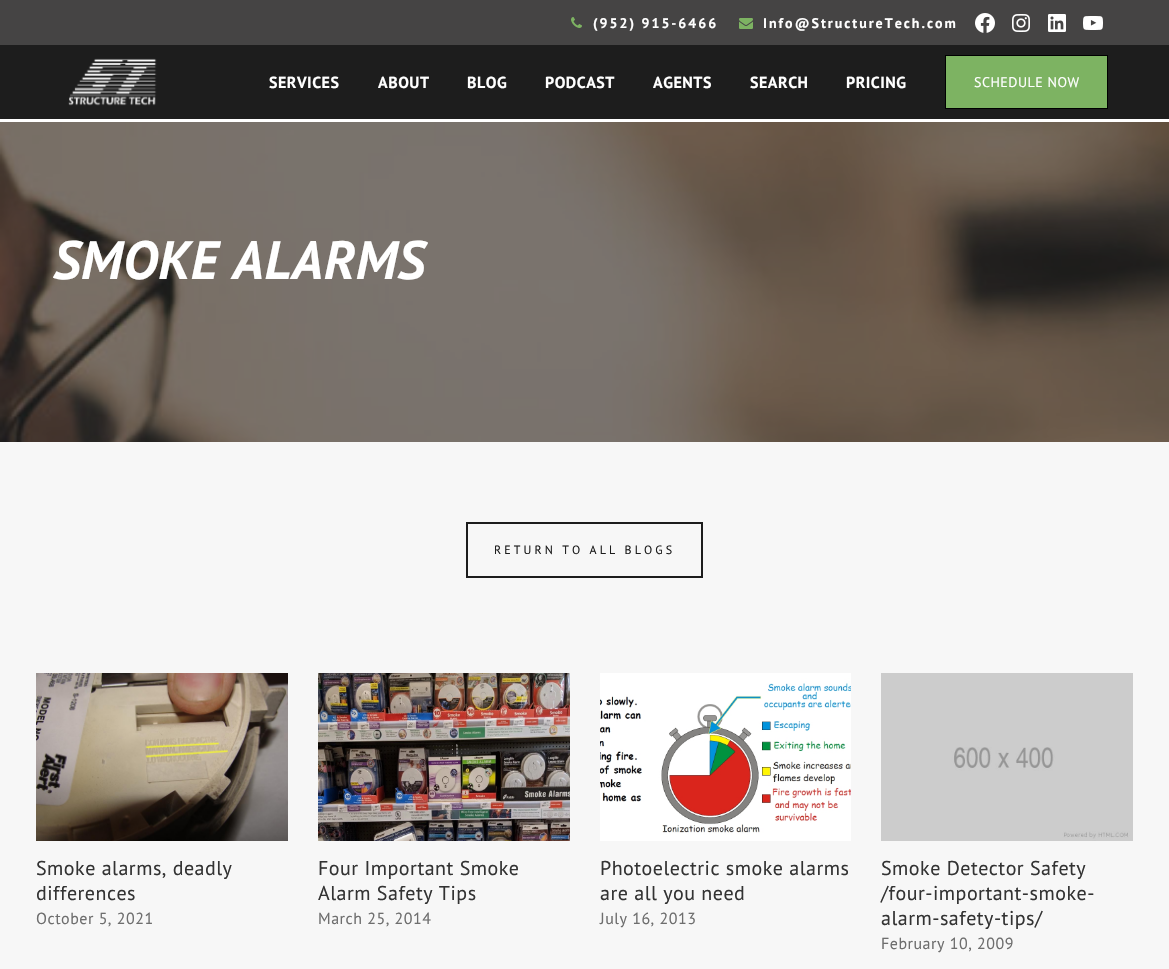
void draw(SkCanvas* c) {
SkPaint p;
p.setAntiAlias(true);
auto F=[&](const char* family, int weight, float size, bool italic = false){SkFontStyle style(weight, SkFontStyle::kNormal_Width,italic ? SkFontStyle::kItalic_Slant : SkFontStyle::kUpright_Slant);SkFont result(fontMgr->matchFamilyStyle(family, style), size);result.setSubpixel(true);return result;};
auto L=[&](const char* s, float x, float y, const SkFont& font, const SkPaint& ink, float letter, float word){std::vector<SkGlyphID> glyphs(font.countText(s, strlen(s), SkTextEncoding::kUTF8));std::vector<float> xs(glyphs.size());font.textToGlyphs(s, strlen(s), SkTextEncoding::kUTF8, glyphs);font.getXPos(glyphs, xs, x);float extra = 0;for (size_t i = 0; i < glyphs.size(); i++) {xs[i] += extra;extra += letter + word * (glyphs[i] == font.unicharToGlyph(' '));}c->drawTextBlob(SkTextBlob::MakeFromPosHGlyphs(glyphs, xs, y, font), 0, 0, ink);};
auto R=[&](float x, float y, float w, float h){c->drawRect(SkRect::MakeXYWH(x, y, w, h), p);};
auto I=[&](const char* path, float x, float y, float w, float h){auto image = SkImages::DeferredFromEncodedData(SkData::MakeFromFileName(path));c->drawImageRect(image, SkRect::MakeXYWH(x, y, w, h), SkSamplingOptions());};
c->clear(0xfff7f7f7);
p.setColor(0xff454444);
R(0,0,1169,45);
I("1.png",571,17,11,11);
auto f1 = F("PT Sans",700,14);
p.setColor(0xffffffff);
L("(952) 915-6466",593,28,f1,p,2,0);
I("2.png",739,18,14,11);
L("Info@StructureTech.com",763,28,f1,p,2,0);
I("3.png",975,13,20,20);
I("4.png",1012,14,18,18);
I("5.png",1048,14,18,18);
I("6.png",1083,16,20,14);
p.setColor(0xff1d1d1d);
R(0,45,1169,74);
p.setColor(0xffffffff);
R(0,119,1169,3);
I("7.png",68,58,89,48);
auto f2 = F("PT Sans",700,16);
L("SERVICES",269,88,f2,p,.5,0);
L("ABOUT",378,88,f2,p,.5,0);
L("BLOG",467,88,f2,p,.5,0);
L("PODCAST",545,88,f2,p,.5,0);
L("AGENTS",653,88,f2,p,.5,0);
L("SEARCH",750,88,f2,p,.5,0);
L("PRICING",846,88,f2,p,.5,0);
p.setColor(0xff7db362);
c->drawRect(SkRect::MakeXYWH(945.5,55.5,162,53),p);
p.setStroke(true);
p.setStrokeWidth(1);
p.setColor(0xff000000);
c->drawRect(SkRect::MakeXYWH(945.5,55.5,162,53),p);
auto f3 = F("PT Sans",400,14);
p.setStroke(false);
p.setColor(0xffffffff);
L("SCHEDULE NOW",974,87,f3,p,.5,0);
p.setColor(0xff262626);
R(0,122,1169,320);
I("8.png",0,122,1169,320);
auto f4 = F("PT Sans",700,54,true);
p.setColor(0xffffffff);
L("SMOKE ALARMS",53,279,f4,p,.5,0);
p.setStroke(true);
p.setStrokeWidth(2);
p.setColor(0xff1d1d1d);
c->drawRect(SkRect::MakeXYWH(467,523,235,54),p);
auto f5 = F("PT Sans",400,12);
p.setStroke(false);
L("RETURN TO ALL BLOGS",494,554,f5,p,3.1,0);
I("9.png",36,673,252,168);
auto f6 = F("PT Sans",400,20);
p.setColor(0xff333333);
L("Smoke alarms, deadly",36,875,f6,p,.5,0);
L("differences",36,900,f6,p,.5,0);
auto f7 = F("PT Sans",400,16);
p.setColor(0xff6e6e6e);
L("October 5, 2021",36,924,f7,p,.5,0);
I("10.png",318,673,252,168);
p.setColor(0xff333333);
L("Four Important Smoke",318,875,f6,p,.5,0);
L("Alarm Safety Tips",318,900,f6,p,.5,0);
p.setColor(0xff6e6e6e);
L("March 25, 2014",318,924,f7,p,.5,0);
I("11.png",600,673,251,168);
p.setColor(0xff333333);
L("Photoelectric smoke alarms",600,875,f6,p,.5,0);
L("are all you need",600,900,f6,p,.5,0);
p.setColor(0xff6e6e6e);
L("July 16, 2013",600,924,f7,p,.5,0);
I("12.png",881,673,252,168);
p.setColor(0xff333333);
L("Smoke Detector Safety",881,875,f6,p,.5,0);
L("/four-important-smoke-",881,900,f6,p,.5,0);
L("alarm-safety-tips/",881,925,f6,p,.5,0);
p.setColor(0xff6e6e6e);
L("February 10, 2009",881,949,f7,p,.5,0);
}
